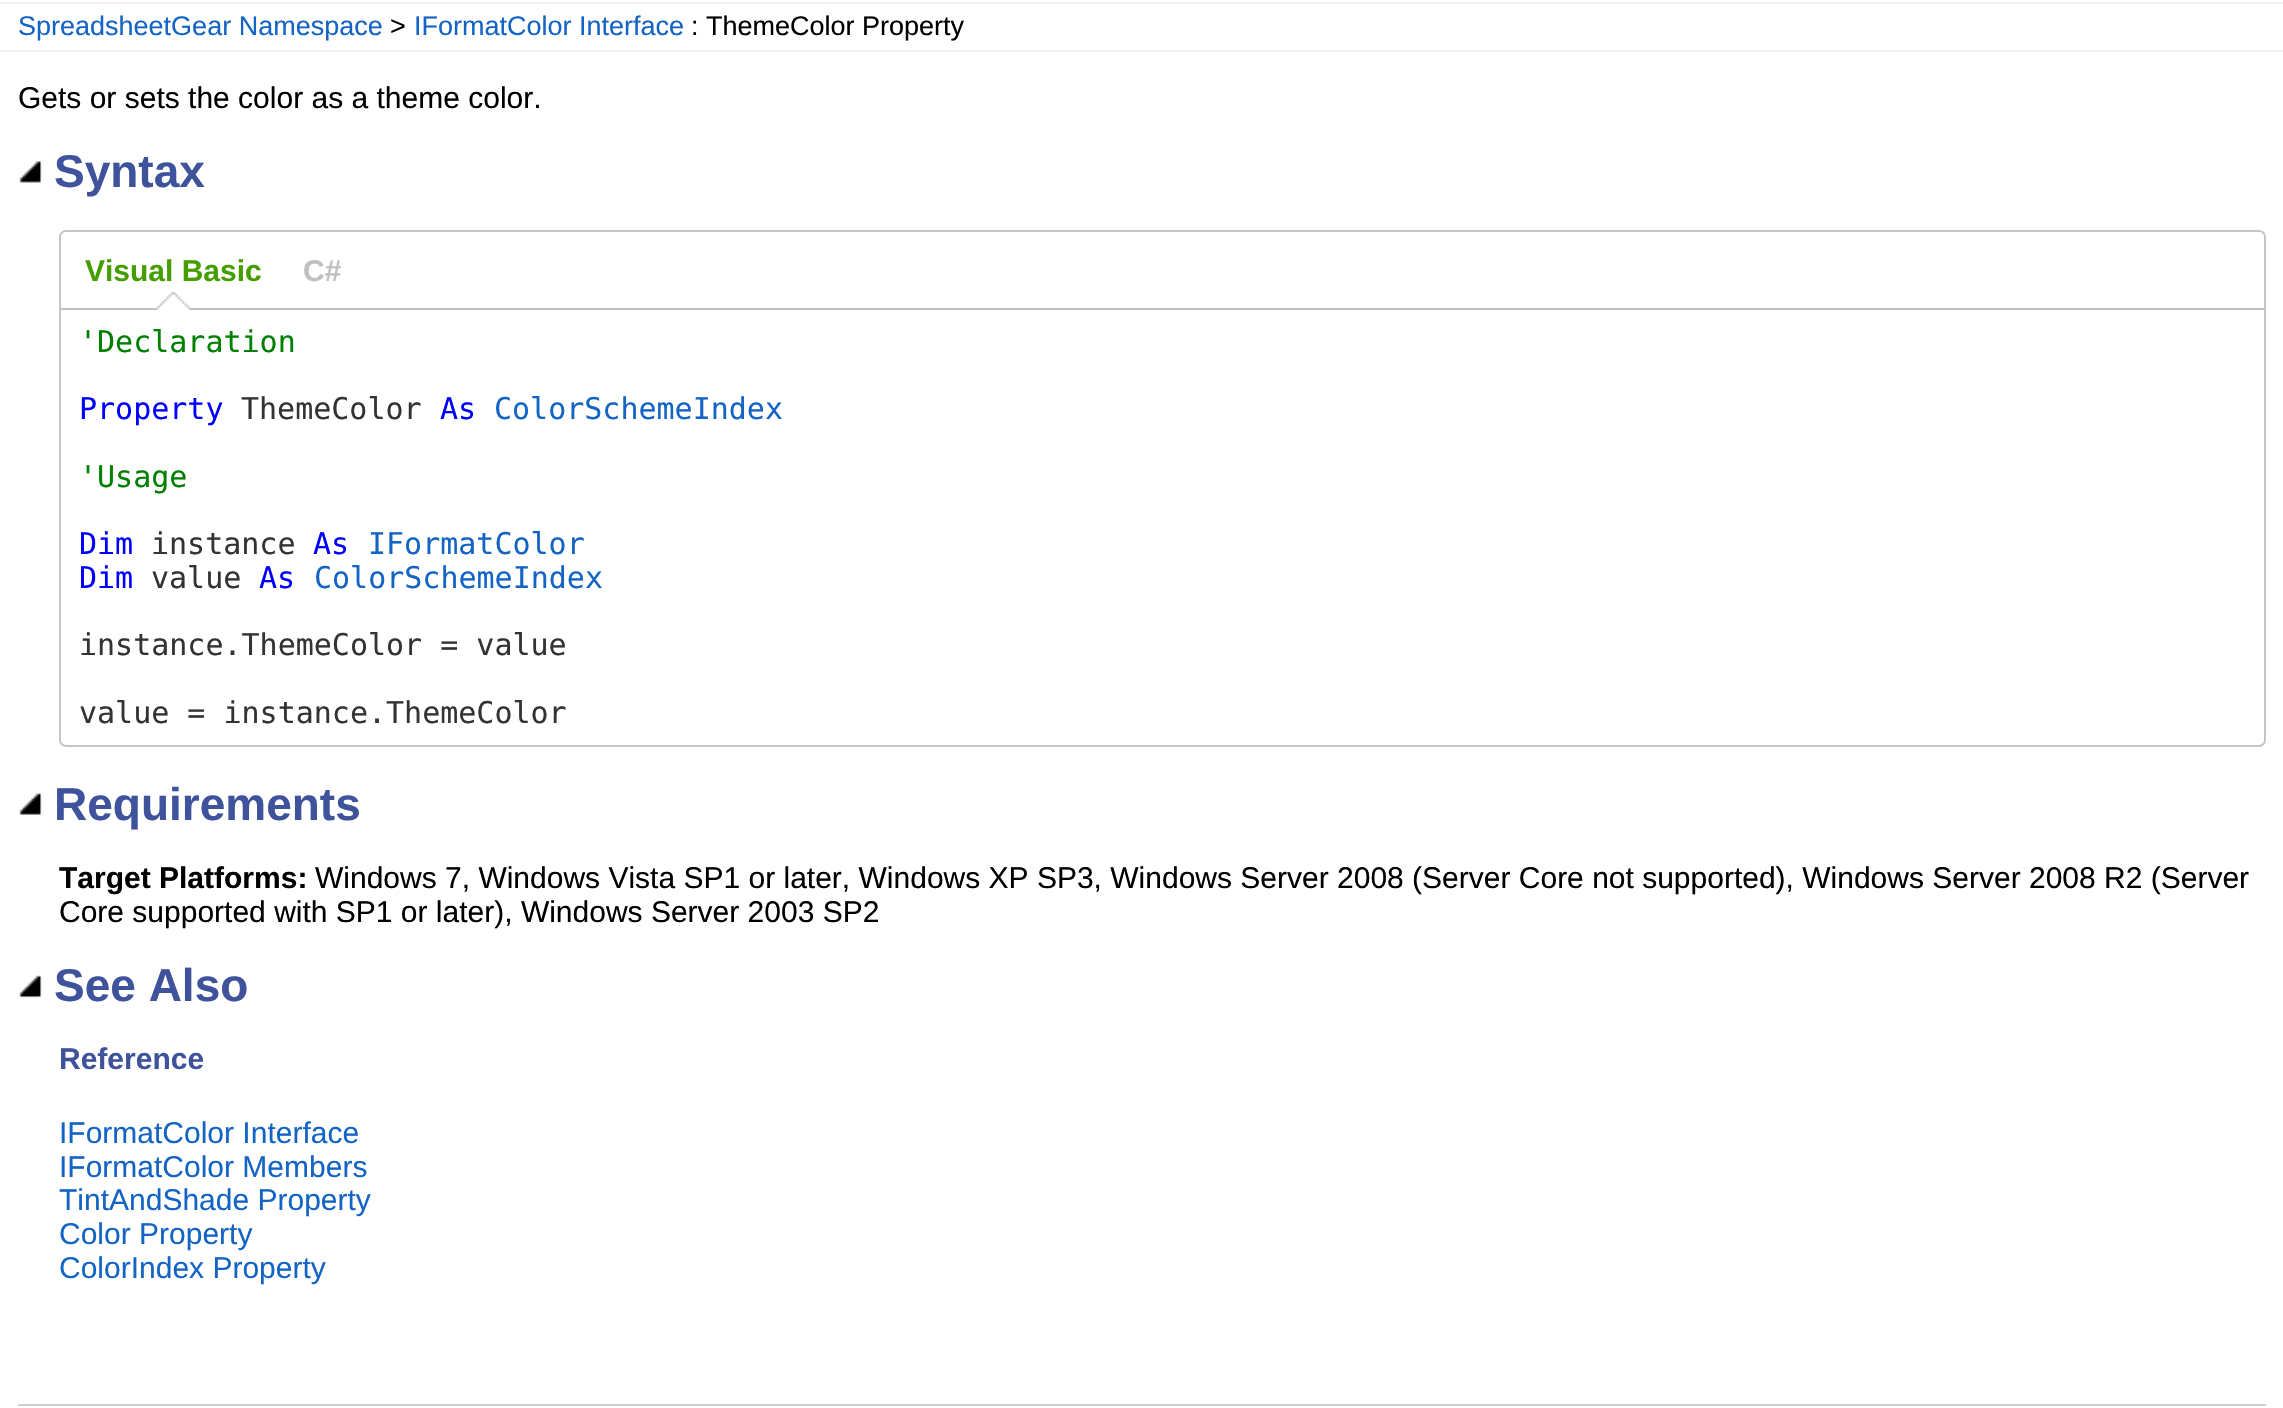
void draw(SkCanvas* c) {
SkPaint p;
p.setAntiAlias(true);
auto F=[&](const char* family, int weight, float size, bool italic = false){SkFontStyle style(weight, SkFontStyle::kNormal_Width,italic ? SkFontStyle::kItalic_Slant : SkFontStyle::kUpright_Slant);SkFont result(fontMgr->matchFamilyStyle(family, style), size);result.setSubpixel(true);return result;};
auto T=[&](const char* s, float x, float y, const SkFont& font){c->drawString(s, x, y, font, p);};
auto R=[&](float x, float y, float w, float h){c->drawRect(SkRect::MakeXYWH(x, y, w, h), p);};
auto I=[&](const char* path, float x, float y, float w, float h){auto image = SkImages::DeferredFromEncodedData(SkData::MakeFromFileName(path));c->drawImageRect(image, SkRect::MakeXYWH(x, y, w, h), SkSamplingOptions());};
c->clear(0xffffffff);
p.setColor(0xfff0f0f0);
R(0,2,2283,2);
R(0,50,2283,2);
auto f1 = F("Liberation Sans",400,27);
p.setColor(0xff1364c4);
T("SpreadsheetGear Namespace",18,35,f1);
p.setColor(0xff000000);
T(">",390,35,f1);
p.setColor(0xff1364c4);
T("IFormatColor Interface",414,35,f1);
p.setColor(0xff000000);
T(": ThemeColor Property",691,35,f1);
auto f2 = F("Liberation Sans",400,30);
T("Gets or sets the color as a theme color.",18,108,f2);
I("1.png",19,161,23,22);
auto f3 = F("Liberation Sans",700,46);
p.setColor(0xff3f529c);
T("Syntax",54,187,f3);
p.setStroke(true);
p.setStrokeWidth(2);
p.setColor(0xffc5c5c5);
c->drawRoundRect(SkRect::MakeXYWH(60,231,2205,515),6,6,p);
p.setStroke(false);
p.setColor(0xffc0c0c0);
R(61,308,2203,2);
I("2.png",155,291,36,20);
auto f4 = F("Liberation Sans",700,30);
p.setColor(0xff459e00);
T("Visual Basic",85,281,f4);
p.setColor(0xffc0c0c0);
T("C#",303,281,f4);
auto f5 = F("DejaVu Sans Mono",400,30);
p.setColor(0xff008000);
T("'Declaration",79,352,f5);
p.setColor(0xff0000ff);
T("Property",79,419,f5);
p.setColor(0xff333333);
T("ThemeColor",241,419,f5);
p.setColor(0xff0000ff);
T("As",440,419,f5);
p.setColor(0xff1364c4);
T("ColorSchemeIndex",494,419,f5);
p.setColor(0xff008000);
T("'Usage",79,487,f5);
p.setColor(0xff0000ff);
T("Dim",79,554,f5);
p.setColor(0xff333333);
T("instance",151,554,f5);
p.setColor(0xff0000ff);
T("As",313,554,f5);
p.setColor(0xff1364c4);
T("IFormatColor",368,554,f5);
p.setColor(0xff0000ff);
T("Dim",79,588,f5);
p.setColor(0xff333333);
T("value",151,588,f5);
p.setColor(0xff0000ff);
T("As",259,588,f5);
p.setColor(0xff1364c4);
T("ColorSchemeIndex",314,588,f5);
p.setColor(0xff333333);
T("instance.ThemeColor = value",79,655,f5);
T("value = instance.ThemeColor",79,723,f5);
I("3.png",19,793,23,22);
p.setColor(0xff3f529c);
T("Requirements",54,820,f3);
p.setColor(0xff000000);
T("Target Platforms:",59,888,f4);
T("Windows 7, Windows Vista SP1 or later, Windows XP SP3, Windows Server 2008 (Server Core not supported), Windows Server 2008 R2 (Server",315,888,f2);
T("Core supported with SP1 or later), Windows Server 2003 SP2",59,922,f2);
I("4.png",19,975,23,23);
p.setColor(0xff3f529c);
T("See Also",54,1001,f3);
T("Reference",59,1069,f4);
p.setColor(0xff1364c4);
T("IFormatColor Interface",59,1143,f2);
T("IFormatColor Members",59,1177,f2);
T("TintAndShade Property",59,1210,f2);
T("Color Property",59,1244,f2);
T("ColorIndex Property",59,1278,f2);
p.setColor(0xffd0d0d0);
R(18,1404,2248,2);
}
